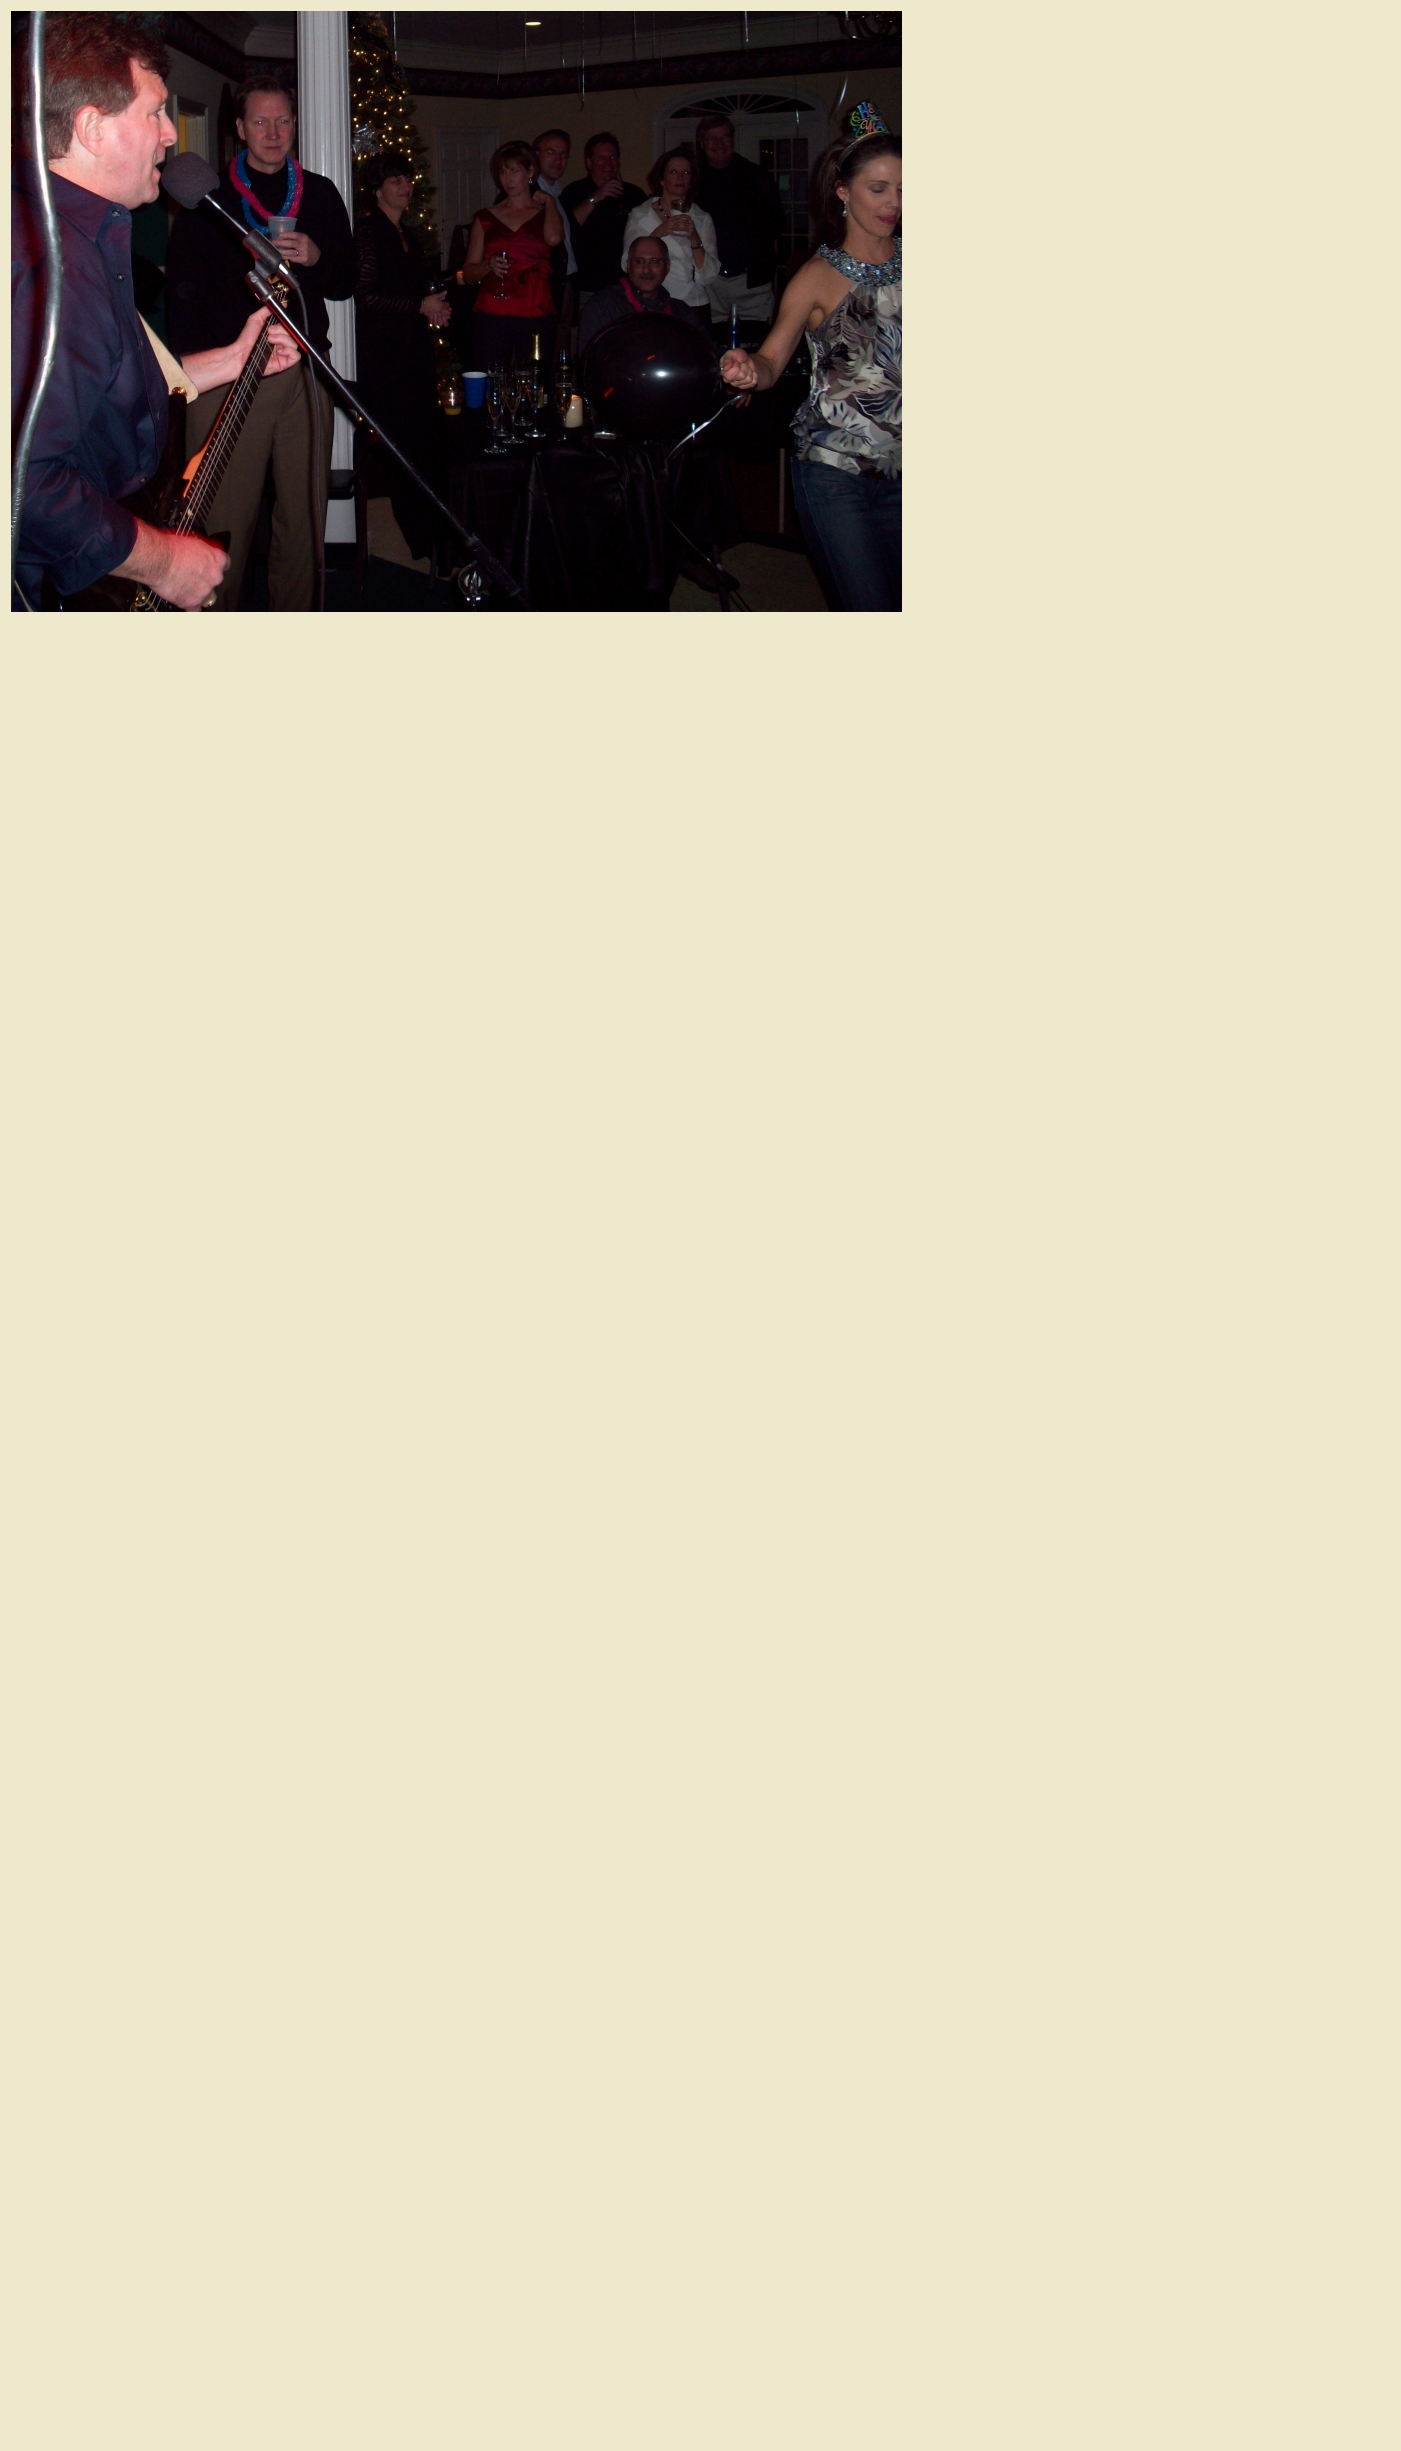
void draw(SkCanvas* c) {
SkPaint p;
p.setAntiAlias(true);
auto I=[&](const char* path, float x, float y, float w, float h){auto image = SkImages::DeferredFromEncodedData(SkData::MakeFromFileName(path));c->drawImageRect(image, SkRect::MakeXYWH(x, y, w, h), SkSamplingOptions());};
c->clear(0xffeee8cd);
I("1.png",11,11,891,601);
}
